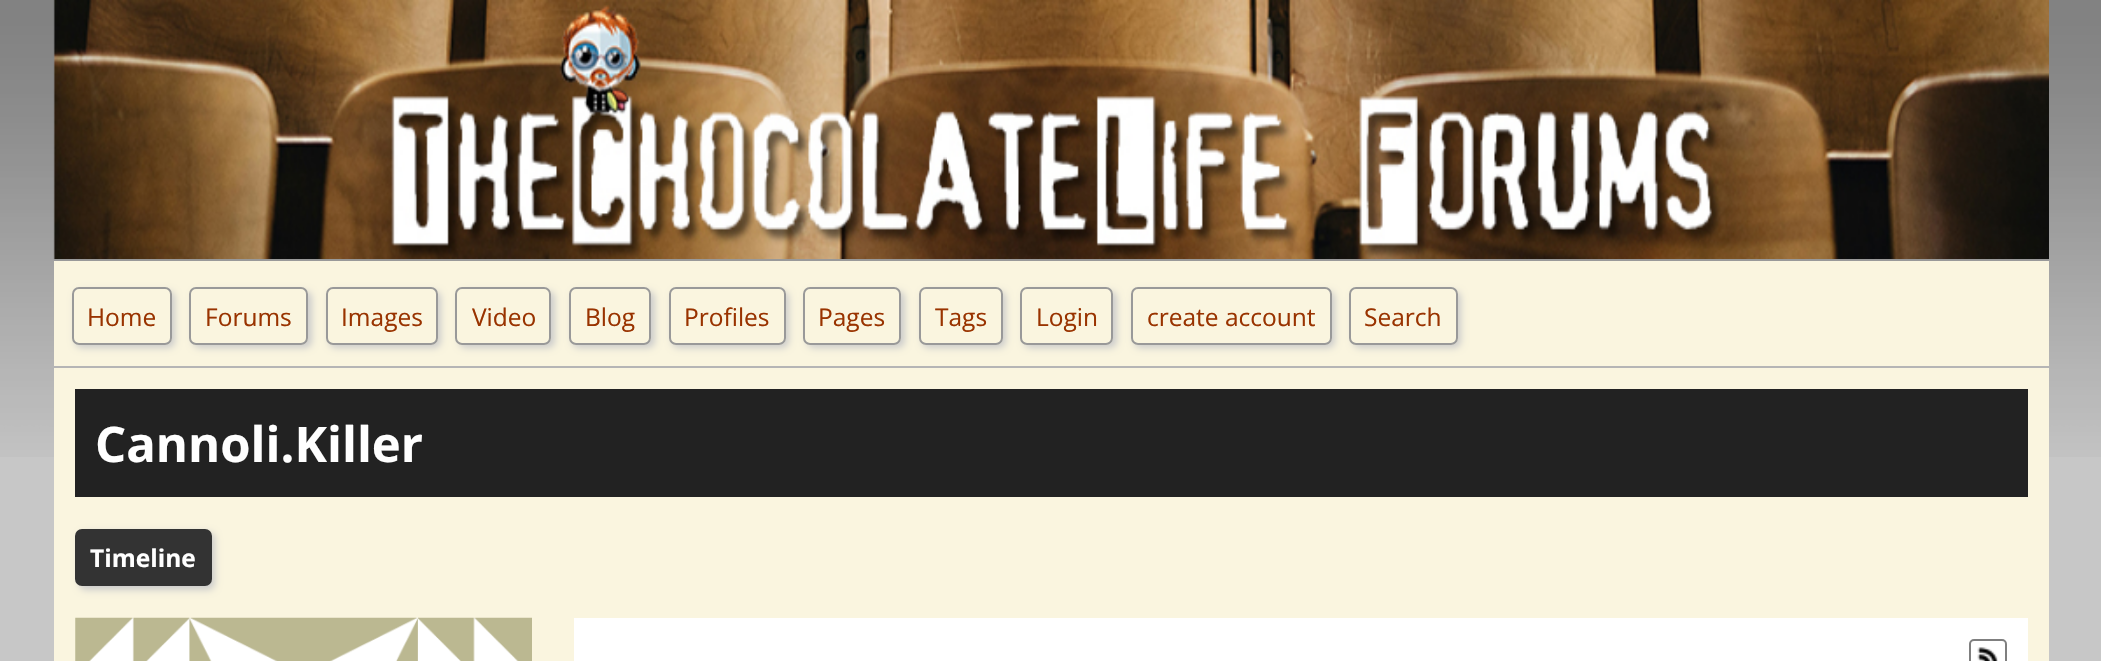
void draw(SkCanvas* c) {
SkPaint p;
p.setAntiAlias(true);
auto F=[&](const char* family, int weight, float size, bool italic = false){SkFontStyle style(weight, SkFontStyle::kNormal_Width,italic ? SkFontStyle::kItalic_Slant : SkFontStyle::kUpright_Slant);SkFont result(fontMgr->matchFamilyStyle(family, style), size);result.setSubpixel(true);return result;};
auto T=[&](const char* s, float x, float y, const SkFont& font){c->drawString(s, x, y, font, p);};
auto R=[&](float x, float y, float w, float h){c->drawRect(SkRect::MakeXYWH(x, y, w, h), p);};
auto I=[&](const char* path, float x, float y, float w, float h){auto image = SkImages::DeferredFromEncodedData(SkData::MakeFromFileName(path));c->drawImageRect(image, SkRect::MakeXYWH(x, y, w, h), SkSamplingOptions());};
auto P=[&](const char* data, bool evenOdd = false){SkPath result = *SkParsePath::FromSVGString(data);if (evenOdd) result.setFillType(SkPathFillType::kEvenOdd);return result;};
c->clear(0xffc7c7c7);
I("1.png",0,0,2101,457);
I("2.png",53,0,1996,259);
p.setColor(0xfffaf5df);
R(54,261,1995,105);
p.setColor(0xff999999);
R(54,259,1995,2);
c->save();
c->clipPath(P("M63 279h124v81h-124zm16 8h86c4 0 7 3 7 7v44c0 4-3 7-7 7h-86c-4 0-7-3-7-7v-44c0-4 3-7 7-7z",true),true);
p.setColor(0xffcccccc);
p.setMaskFilter(SkMaskFilter::MakeBlur(kNormal_SkBlurStyle, 3.5));
c->drawRoundRect(SkRect::MakeXYWH(75,291,100,57),7,7,p);
p.setMaskFilter(nullptr);
c->restore();
p.setStroke(true);
p.setStrokeWidth(2);
p.setColor(0xff999999);
c->drawRoundRect(SkRect::MakeXYWH(73,288,98,56),6,6,p);
auto f1 = F("Open Sans",400,24.5);
p.setStroke(false);
p.setColor(0xff993300);
T("Home",87,326,f1);
c->save();
c->clipPath(P("M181 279h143v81h-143zm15 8h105c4 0 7 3 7 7v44c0 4-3 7-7 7h-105c-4 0-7-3-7-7v-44c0-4 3-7 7-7z",true),true);
p.setColor(0xffcccccc);
p.setMaskFilter(SkMaskFilter::MakeBlur(kNormal_SkBlurStyle, 3.5));
c->drawRoundRect(SkRect::MakeXYWH(193,291,119,57),7,7,p);
p.setMaskFilter(nullptr);
c->restore();
p.setStroke(true);
p.setColor(0xff999999);
c->drawRoundRect(SkRect::MakeXYWH(190,288,117,56),6,6,p);
p.setStroke(false);
p.setColor(0xff993300);
T("Forums",205,326,f1);
c->save();
c->clipPath(P("M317 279h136v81h-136zm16 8h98c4 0 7 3 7 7v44c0 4-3 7-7 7h-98c-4 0-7-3-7-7v-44c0-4 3-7 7-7z",true),true);
p.setColor(0xffcccccc);
p.setMaskFilter(SkMaskFilter::MakeBlur(kNormal_SkBlurStyle, 3.5));
c->drawRoundRect(SkRect::MakeXYWH(329,291,112,57),7,7,p);
p.setMaskFilter(nullptr);
c->restore();
p.setStroke(true);
p.setColor(0xff999999);
c->drawRoundRect(SkRect::MakeXYWH(327,288,110,56),6,6,p);
p.setStroke(false);
p.setColor(0xff993300);
T("Images",341,326,f1);
c->save();
c->clipPath(P("M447 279h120v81h-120zm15 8h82c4 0 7 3 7 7v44c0 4-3 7-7 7h-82c-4 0-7-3-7-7v-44c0-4 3-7 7-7z",true),true);
p.setColor(0xffcccccc);
p.setMaskFilter(SkMaskFilter::MakeBlur(kNormal_SkBlurStyle, 3.5));
c->drawRoundRect(SkRect::MakeXYWH(459,291,96,57),7,7,p);
p.setMaskFilter(nullptr);
c->restore();
p.setStroke(true);
p.setColor(0xff999999);
c->drawRoundRect(SkRect::MakeXYWH(456,288,94,56),6,6,p);
p.setStroke(false);
p.setColor(0xff993300);
T("Video",472,326,f1);
c->save();
c->clipPath(P("M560 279h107v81h-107zm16 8h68c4 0 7 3 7 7v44c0 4-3 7-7 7h-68c-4 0-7-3-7-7v-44c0-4 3-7 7-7z",true),true);
p.setColor(0xffcccccc);
p.setMaskFilter(SkMaskFilter::MakeBlur(kNormal_SkBlurStyle, 3.5));
c->drawRoundRect(SkRect::MakeXYWH(572,291,83,57),7,7,p);
p.setMaskFilter(nullptr);
c->restore();
p.setStroke(true);
p.setColor(0xff999999);
c->drawRoundRect(SkRect::MakeXYWH(570,288,80,56),6,6,p);
p.setStroke(false);
p.setColor(0xff993300);
T("Blog",585,326,f1);
c->save();
c->clipPath(P("M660 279h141v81h-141zm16 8h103c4 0 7 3 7 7v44c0 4-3 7-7 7h-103c-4 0-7-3-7-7v-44c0-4 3-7 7-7z",true),true);
p.setColor(0xffcccccc);
p.setMaskFilter(SkMaskFilter::MakeBlur(kNormal_SkBlurStyle, 3.5));
c->drawRoundRect(SkRect::MakeXYWH(672,291,117,57),7,7,p);
p.setMaskFilter(nullptr);
c->restore();
p.setStroke(true);
p.setColor(0xff999999);
c->drawRoundRect(SkRect::MakeXYWH(670,288,115,56),6,6,p);
p.setStroke(false);
p.setColor(0xff993300);
T("Profiles",684,326,f1);
c->save();
c->clipPath(P("M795 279h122v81h-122zm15 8h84c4 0 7 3 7 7v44c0 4-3 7-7 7h-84c-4 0-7-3-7-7v-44c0-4 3-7 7-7z",true),true);
p.setColor(0xffcccccc);
p.setMaskFilter(SkMaskFilter::MakeBlur(kNormal_SkBlurStyle, 3.5));
c->drawRoundRect(SkRect::MakeXYWH(807,291,98,57),7,7,p);
p.setMaskFilter(nullptr);
c->restore();
p.setStroke(true);
p.setColor(0xff999999);
c->drawRoundRect(SkRect::MakeXYWH(804,288,96,56),6,6,p);
p.setStroke(false);
p.setColor(0xff993300);
T("Pages",818,326,f1);
c->save();
c->clipPath(P("M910 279h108v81h-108zm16 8h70c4 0 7 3 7 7v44c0 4-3 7-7 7h-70c-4 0-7-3-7-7v-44c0-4 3-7 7-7z",true),true);
p.setColor(0xffcccccc);
p.setMaskFilter(SkMaskFilter::MakeBlur(kNormal_SkBlurStyle, 3.5));
c->drawRoundRect(SkRect::MakeXYWH(922,291,84,57),7,7,p);
p.setMaskFilter(nullptr);
c->restore();
p.setStroke(true);
p.setColor(0xff999999);
c->drawRoundRect(SkRect::MakeXYWH(920,288,82,56),6,6,p);
p.setStroke(false);
p.setColor(0xff993300);
T("Tags",935,326,f1);
c->save();
c->clipPath(P("M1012 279h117v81h-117zm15 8h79c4 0 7 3 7 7v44c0 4-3 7-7 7h-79c-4 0-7-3-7-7v-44c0-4 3-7 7-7z",true),true);
p.setColor(0xffcccccc);
p.setMaskFilter(SkMaskFilter::MakeBlur(kNormal_SkBlurStyle, 3.5));
c->drawRoundRect(SkRect::MakeXYWH(1024,291,93,57),7,7,p);
p.setMaskFilter(nullptr);
c->restore();
p.setStroke(true);
p.setColor(0xff999999);
c->drawRoundRect(SkRect::MakeXYWH(1021,288,91,56),6,6,p);
p.setStroke(false);
p.setColor(0xff993300);
T("Login",1036,326,f1);
c->save();
c->clipPath(P("M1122 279h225v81h-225zm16 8h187c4 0 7 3 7 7v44c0 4-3 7-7 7h-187c-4 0-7-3-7-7v-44c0-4 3-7 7-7z",true),true);
p.setColor(0xffcccccc);
p.setMaskFilter(SkMaskFilter::MakeBlur(kNormal_SkBlurStyle, 3.5));
c->drawRoundRect(SkRect::MakeXYWH(1134,291,201,57),7,7,p);
p.setMaskFilter(nullptr);
c->restore();
p.setStroke(true);
p.setColor(0xff999999);
c->drawRoundRect(SkRect::MakeXYWH(1132,288,199,56),6,6,p);
p.setStroke(false);
p.setColor(0xff993300);
T("create account",1147,326,f1);
c->save();
c->clipPath(P("M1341 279h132v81h-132zm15 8h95c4 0 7 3 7 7v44c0 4-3 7-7 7h-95c-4 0-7-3-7-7v-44c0-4 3-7 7-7z",true),true);
p.setColor(0xffcccccc);
p.setMaskFilter(SkMaskFilter::MakeBlur(kNormal_SkBlurStyle, 3.5));
c->drawRoundRect(SkRect::MakeXYWH(1353,291,108,57),7,7,p);
p.setMaskFilter(nullptr);
c->restore();
p.setStroke(true);
p.setColor(0xff999999);
c->drawRoundRect(SkRect::MakeXYWH(1350,288,107,56),6,6,p);
p.setStroke(false);
p.setColor(0xff993300);
T("Search",1364,326,f1);
p.setColor(0xfffaf5df);
R(54,368,1995,293);
p.setColor(0xff222222);
R(75,389,1953,108);
auto f2 = F("Open Sans",700,49);
p.setColor(0xffffffff);
T("Cannoli.Killer",95,462,f2);
p.setColor(0xffcccccc);
p.setMaskFilter(SkMaskFilter::MakeBlur(kNormal_SkBlurStyle, 3.5));
c->drawRoundRect(SkRect::MakeXYWH(79,532,136,58),7,7,p);
p.setMaskFilter(nullptr);
p.setColor(0xff333333);
c->drawRoundRect(SkRect::MakeXYWH(76,530,135,55),6,6,p);
p.setStroke(true);
c->drawRoundRect(SkRect::MakeXYWH(76,530,135,55),6,6,p);
auto f3 = F("Open Sans",700,24.5);
p.setStroke(false);
p.setColor(0xffffffff);
T("Timeline",90,567,f3);
I("3.png",75,617,457,44);
R(574,618,1454,43);
p.setStroke(true);
p.setColor(0xff7f7f7f);
c->drawRoundRect(SkRect::MakeXYWH(1970,640,36,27),4,4,p);
I("4.png",1977,647,21,14);
}
